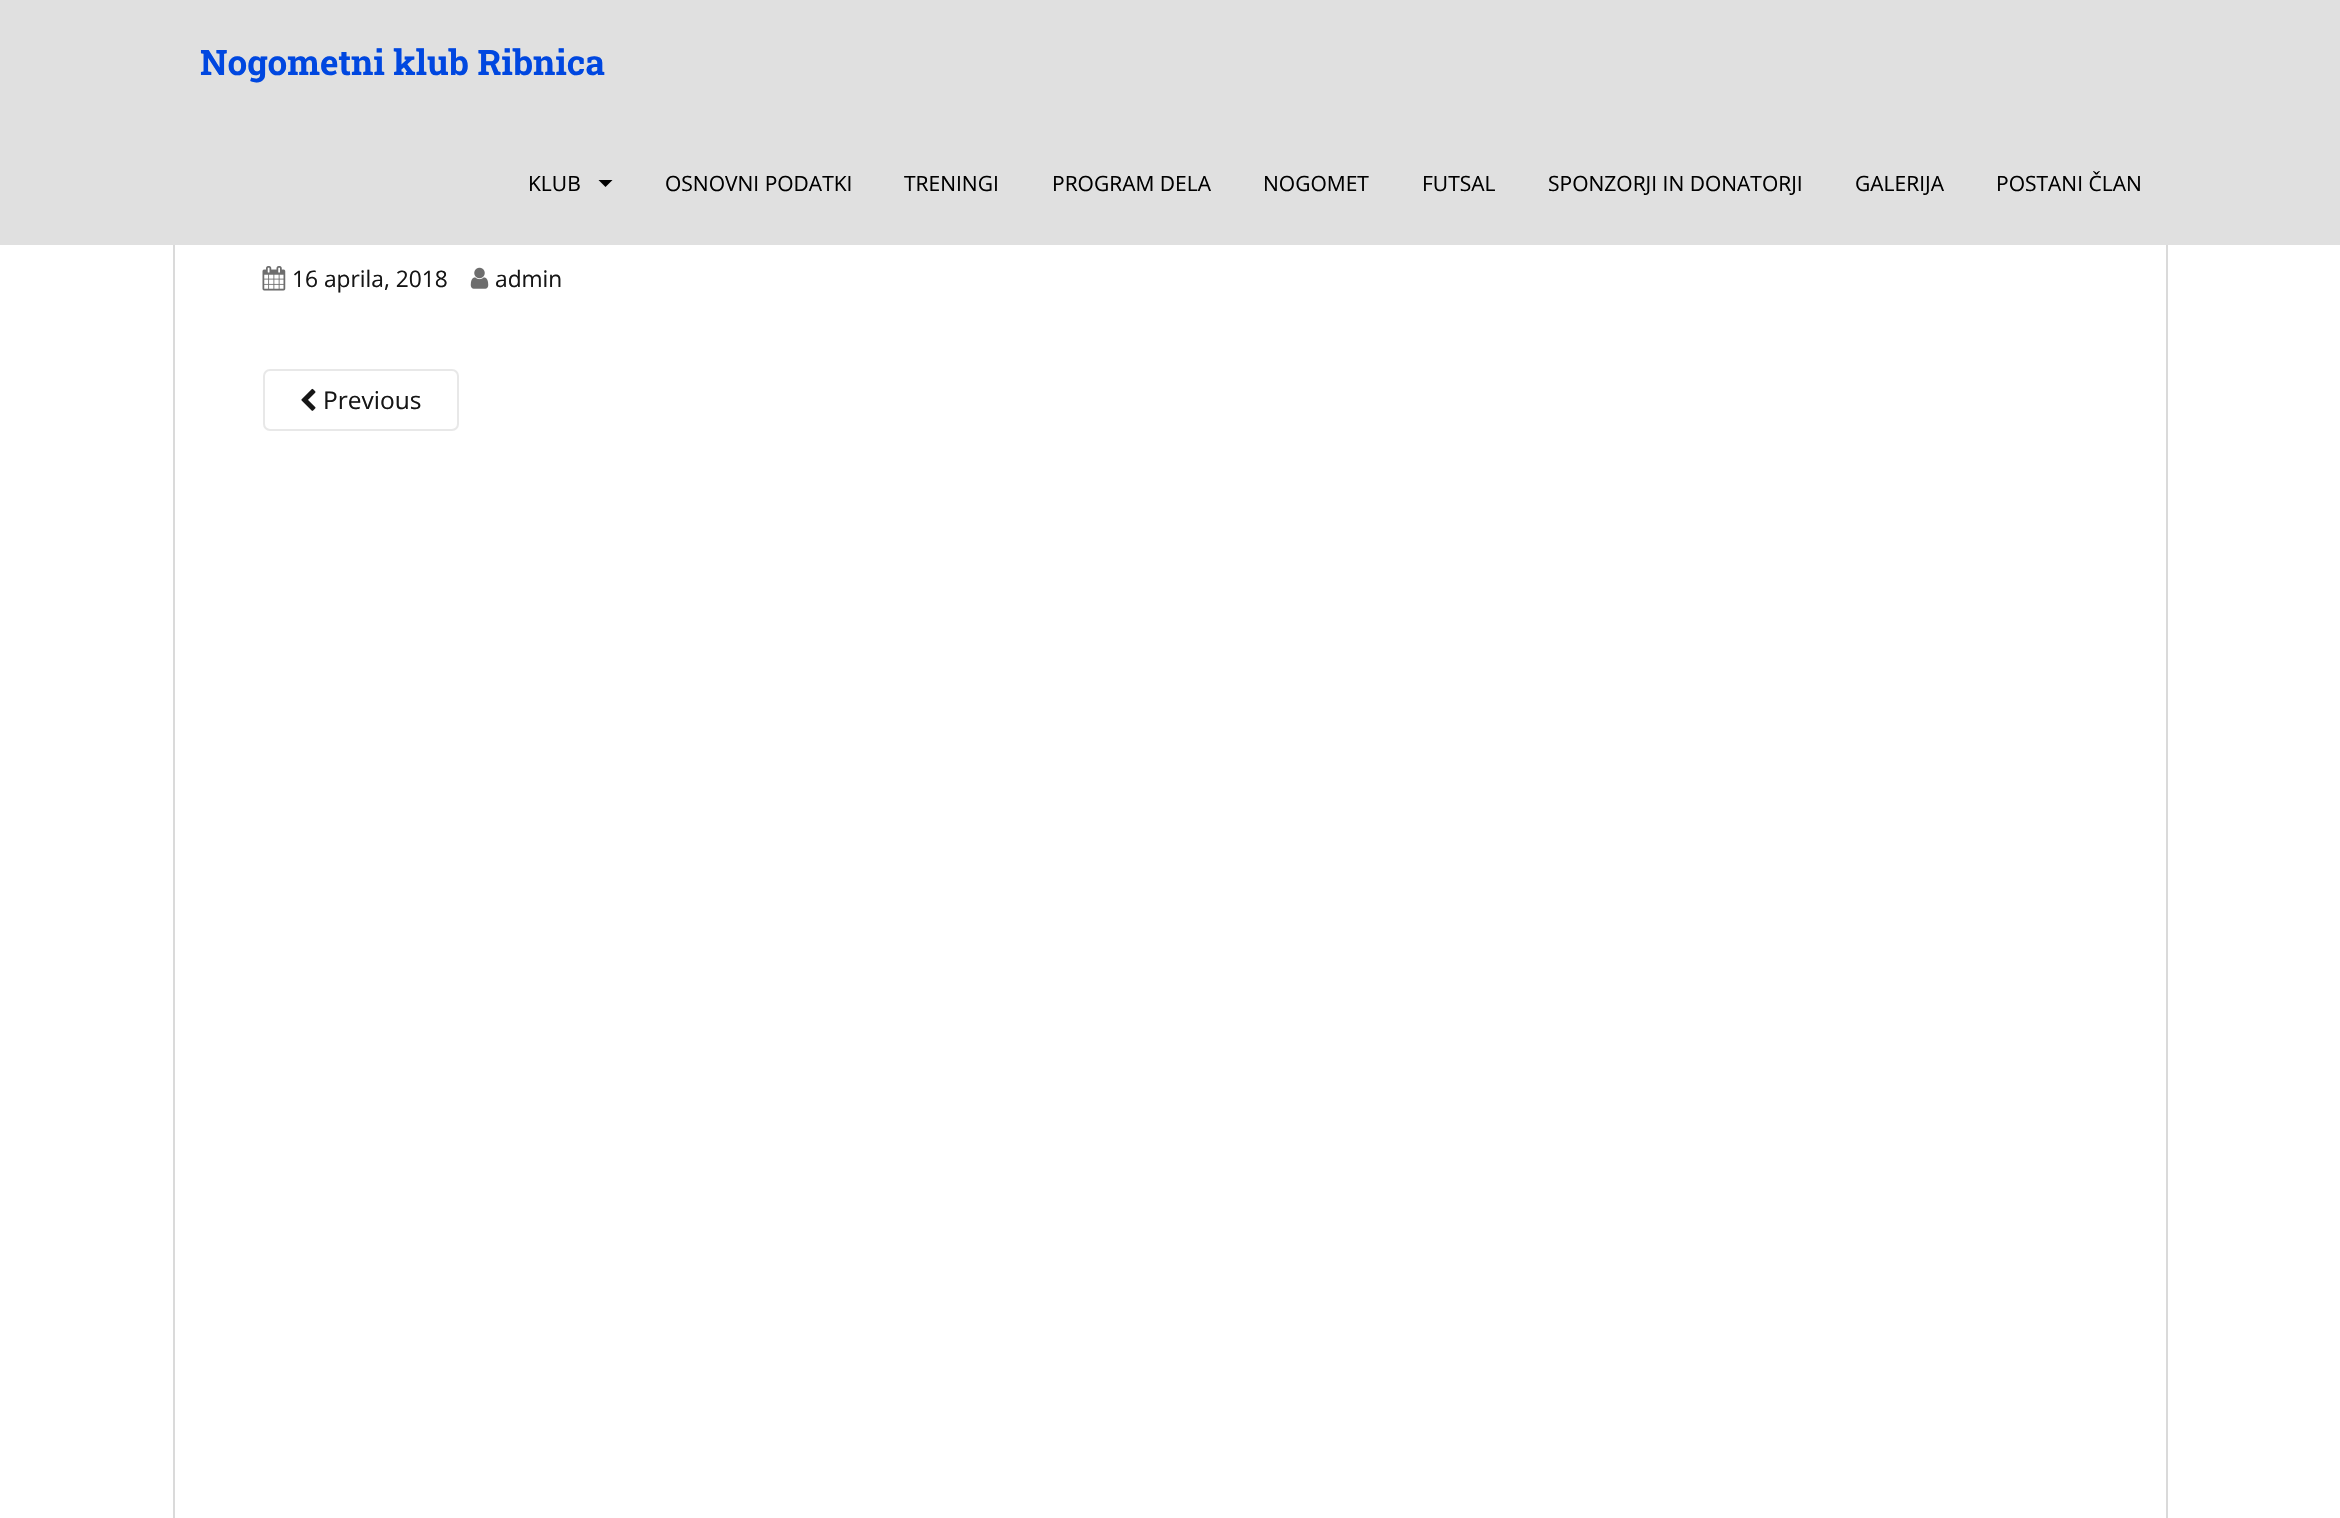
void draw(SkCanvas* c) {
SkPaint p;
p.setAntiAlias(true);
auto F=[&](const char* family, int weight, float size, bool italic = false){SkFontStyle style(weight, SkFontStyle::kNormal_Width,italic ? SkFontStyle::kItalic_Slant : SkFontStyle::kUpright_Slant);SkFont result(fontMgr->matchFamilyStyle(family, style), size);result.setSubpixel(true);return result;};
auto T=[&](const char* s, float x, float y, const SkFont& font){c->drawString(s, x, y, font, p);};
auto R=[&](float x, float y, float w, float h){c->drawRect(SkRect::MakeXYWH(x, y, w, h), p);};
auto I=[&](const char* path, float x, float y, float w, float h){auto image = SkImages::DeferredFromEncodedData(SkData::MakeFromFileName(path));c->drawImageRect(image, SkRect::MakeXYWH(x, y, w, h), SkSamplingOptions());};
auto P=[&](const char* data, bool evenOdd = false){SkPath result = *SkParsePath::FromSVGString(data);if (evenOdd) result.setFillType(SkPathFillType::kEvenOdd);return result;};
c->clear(0xffffffff);
p.setStroke(true);
p.setStrokeWidth(2);
p.setColor(0xffdadada);
c->drawRect(SkRect::MakeXYWH(174,71,1993,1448),p);
p.setStroke(false);
p.setColor(0xffe0e0e0);
R(0,0,2340,245);
auto f1 = F("Roboto Slab",700,35);
p.setColor(0xff0047e0);
T("Nogometni klub Ribnica",200,75,f1);
auto f2 = F("Open Sans",400,21);
p.setColor(0xff000000);
T("KLUB",528,191,f2);
c->drawPath(P("M598.5 180h14l-7 7z"),p);
T("OSNOVNI PODATKI",665,191,f2);
T("TRENINGI",904,191,f2);
T("PROGRAM DELA",1052,191,f2);
T("NOGOMET",1263,191,f2);
T("FUTSAL",1422,191,f2);
T("SPONZORJI IN DONATORJI",1548,191,f2);
T("GALERIJA",1855,191,f2);
T("POSTANI ČLAN",1996,191,f2);
I("1.png",262,266,24,25);
auto f3 = F("Open Sans",400,22.75);
p.setColor(0xff161616);
T("16 aprila, 2018",292,287,f3);
I("2.png",470,267,19,22);
T("admin",495,287,f3);
p.setStroke(true);
p.setColor(0xffe8e8e8);
c->drawRoundRect(SkRect::MakeXYWH(264,370,194,60),6,6,p);
I("3.png",301,388,15,23);
auto f4 = F("Open Sans",400,24.5);
p.setStroke(false);
p.setColor(0xff161616);
T("Previous",323,409,f4);
}
